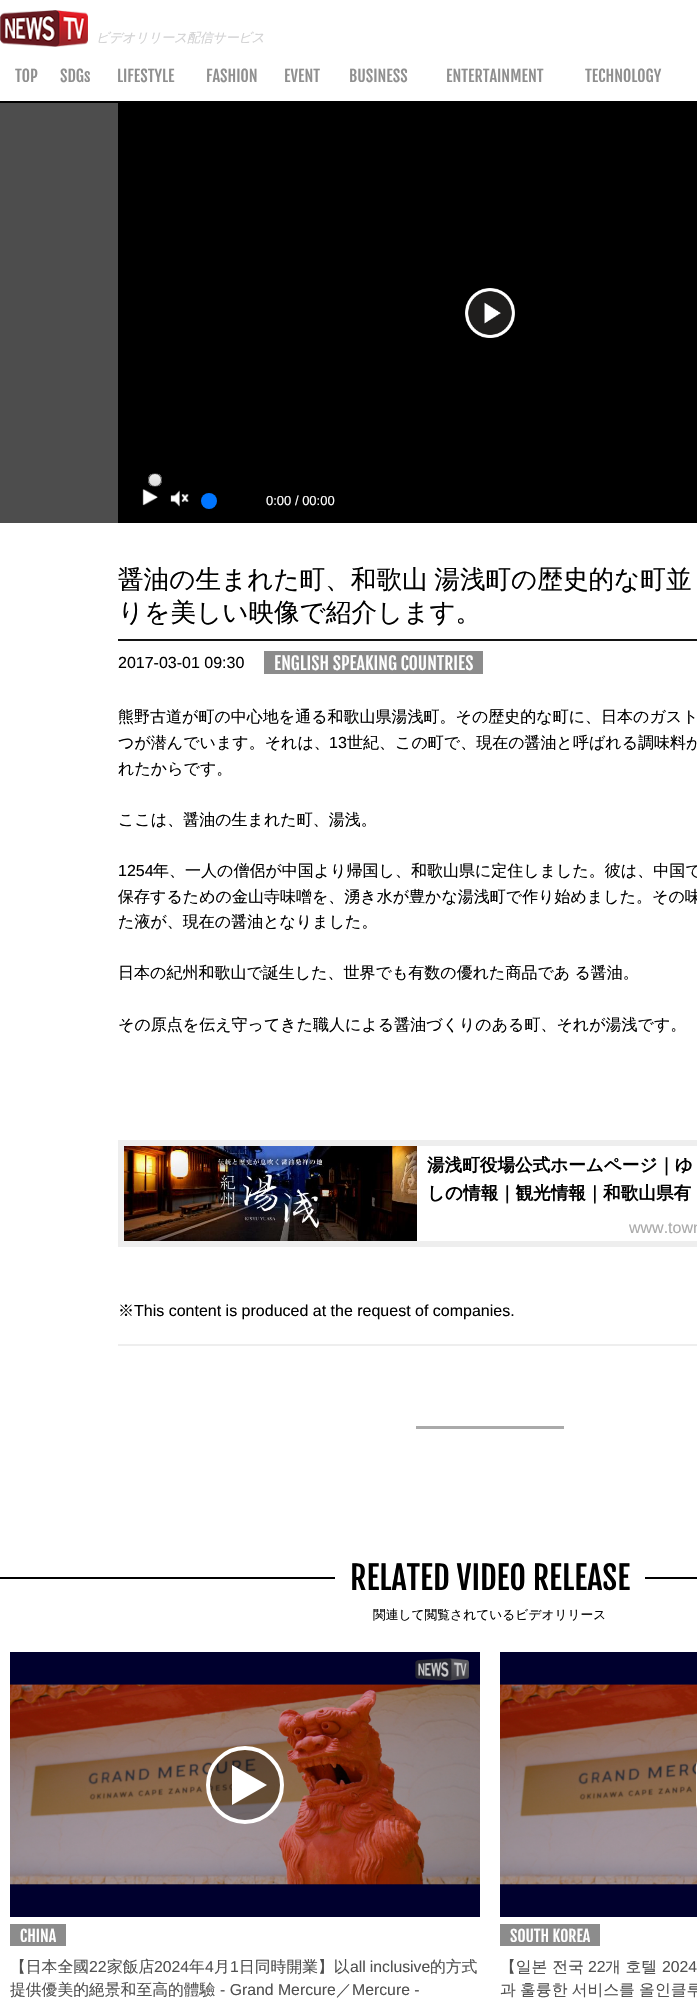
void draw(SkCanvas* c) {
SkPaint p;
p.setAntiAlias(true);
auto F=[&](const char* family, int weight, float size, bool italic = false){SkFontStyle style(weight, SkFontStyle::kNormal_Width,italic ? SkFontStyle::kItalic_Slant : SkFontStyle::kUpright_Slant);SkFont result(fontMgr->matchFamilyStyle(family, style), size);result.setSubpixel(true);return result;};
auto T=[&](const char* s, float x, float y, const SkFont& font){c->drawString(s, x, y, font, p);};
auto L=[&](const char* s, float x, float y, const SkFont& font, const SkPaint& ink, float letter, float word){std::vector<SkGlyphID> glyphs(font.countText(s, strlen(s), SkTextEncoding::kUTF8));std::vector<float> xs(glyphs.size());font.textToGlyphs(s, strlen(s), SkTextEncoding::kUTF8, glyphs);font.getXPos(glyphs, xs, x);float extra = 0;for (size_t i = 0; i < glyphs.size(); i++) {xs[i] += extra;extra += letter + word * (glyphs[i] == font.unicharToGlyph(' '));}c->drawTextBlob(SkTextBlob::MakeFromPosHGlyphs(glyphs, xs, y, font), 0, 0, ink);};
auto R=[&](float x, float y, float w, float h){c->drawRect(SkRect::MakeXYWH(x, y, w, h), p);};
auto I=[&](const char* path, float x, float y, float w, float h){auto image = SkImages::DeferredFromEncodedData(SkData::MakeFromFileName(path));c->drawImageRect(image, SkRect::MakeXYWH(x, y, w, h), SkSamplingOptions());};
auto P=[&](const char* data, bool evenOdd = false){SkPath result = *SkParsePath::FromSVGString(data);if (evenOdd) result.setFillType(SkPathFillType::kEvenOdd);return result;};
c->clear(0xffffffff);
I("1.png",0,10,88,37);
auto f1 = F("WenQuanYi Zen Hei",500,13,true);
p.setColor(0xffd2d2d3);
L("ビデオリリース配信サービス",96,42,f1,p,-.25,0);
p.setColor(0xff000000);
R(0,101,697,2);
auto f2 = F("Fjalla One",400,16);
p.setColor(0xff8f8f8f);
T("TOP",15,82,f2);
T("SDGs",60,82,f2);
T("LIFESTYLE",117,82,f2);
T("FASHION",206,82,f2);
T("EVENT",284,82,f2);
T("BUSINESS",349,82,f2);
T("ENTERTAINMENT",446,82,f2);
T("TECHNOLOGY",585,82,f2);
p.setColor(0xff4d4d4d);
R(0,103,118,420);
p.setColor(0xff000000);
R(118,103,579,420);
I("2.png",465,288,50,50);
c->save();
c->clipPath(P("M155 473c4 0 7 3 7 7c0 4-3 7-7 7c-4 0-7-3-7-7c0-4 3-7 7-7z"),true);
{
const SkColor colors[] = {0xffeeeeee,0xffdddddd};
const float stops[] = {0,1};
const SkPoint ends[] = {{155,474}, {155,486}};
p.setShader(SkGradientShader::MakeLinear(ends, colors, stops, 2, SkTileMode::kClamp));
p.setAlpha(255);
}
R(148,474,14,12);
c->restore();
p.setStroke(true);
p.setStrokeWidth(1);
p.setShader(nullptr);
p.setColor(0xff333333);
c->drawCircle(155,480,6.5,p);
I("3.png",142,489,16,17);
I("4.png",170,490,19,17);
p.setStroke(false);
p.setColor(0xff0075ff);
c->drawCircle(209,501,8,p);
auto f3 = F("Liberation Sans",400,13);
p.setColor(0xffffffff);
T("0:00 / 00:00",266,505,f3);
p.setColor(0xff141414);
R(118,639,579,2);
auto f4 = F("WenQuanYi Zen Hei",500,25.6);
p.setColor(0xff000000);
L("醤油の生まれた町、和歌山 湯浅町の歴史的な町並",118,588,f4,p,0,-1);
T("りを美しい映像で紹介します。",118,621,f4);
auto f5 = F("Liberation Sans",400,16);
T("2017-03-01 09:30",118,668,f5);
p.setColor(0xff8c8c8c);
R(264,651,219,23);
auto f6 = F("Fjalla One",400,17.6);
p.setColor(0xffffffff);
T("ENGLISH SPEAKING COUNTRIES",274,670,f6);
auto f7 = F("WenQuanYi Zen Hei",500,16);
p.setColor(0xff000000);
T("熊野古道が町の中心地を通る和歌山県湯浅町。その歴史的な町に、日本のガスト",118,722,f7);
T("つが潜んでいます。それは、",118,748,f7);
T("13",329,748,f5);
T("世紀、この町で、現在の醤油と呼ばれる調味料が",347,748,f7);
T("れたからです。",118,774,f7);
T("ここは、醤油の生まれた町、湯浅。",118,825,f7);
T("1254",118,876,f5);
T("年、一人の僧侶が中国より帰国し、和歌山県に定住しました。彼は、中国で",153,876,f7);
T("保存するための金山寺味噌を、湧き水が豊かな湯浅町で作り始めました。その味",118,902,f7);
T("た液が、現在の醤油となりました。",118,927,f7);
L("日本の紀州和歌山で誕生した、世界でも有数の優れた商品であ る醤油。",118,978,f7,p,0,-.5);
T("その原点を伝え守ってきた職人による醤油づくりのある町、それが湯浅です。",118,1030,f7);
p.setStroke(true);
p.setStrokeWidth(6);
p.setColor(0xffeeeeee);
c->drawRect(SkRect::MakeXYWH(121,1143,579,101),p);
I("5.png",124,1146,293,95);
auto f8 = F("WenQuanYi Zen Hei",700,17.6);
p.setStroke(false);
p.setColor(0xff000000);
T("湯浅町役場公式ホームページ｜ゆ",427,1171,f8);
T("しの情報｜観光情報｜和歌山県有",427,1199,f8);
{
const SkColor colors[] = {0x00ffffff,0xe6ffffff};
const float stops[] = {0,.5};
const SkPoint ends[] = {{637,1200}, {637,1241}};
p.setShader(SkGradientShader::MakeLinear(ends, colors, stops, 2, SkTileMode::kClamp));
p.setAlpha(255);
}
R(432,1200,255,4);
p.setShader(nullptr);
p.setColor(0xffaaaaaa);
T("www.town",629,1233,f5);
p.setColor(0xff000000);
T("※",118,1316,f7);
T("This content is produced at the request of companies.",134,1316,f5);
p.setColor(0xffeeeeee);
R(118,1344,579,2);
p.setColor(0xffaaaaaa);
R(416,1426,148,3);
p.setColor(0xff000000);
R(0,1577,697,2);
p.setColor(0xffffffff);
R(335,1577,310,2);
auto f9 = F("Fjalla One",400,32);
p.setColor(0xff000000);
T("RELATED VIDEO RELEASE",350,1590,f9);
auto f10 = F("WenQuanYi Zen Hei",500,12.75);
T("関連して閲覧されているビデオリリース",373,1619,f10);
I("6.png",10,1652,470,265);
p.setColor(0x4d000000);
c->drawCircle(245,1785,37,p);
p.setStroke(true);
p.setStrokeWidth(4);
p.setColor(0xffffffff);
c->drawCircle(245,1785,37,p);
p.setStroke(false);
c->drawPath(P("M232 1805v-40l35 20z"),p);
p.setColor(0xff8c8c8c);
R(10,1924,56,22);
auto f11 = F("Fjalla One",400,15.8);
p.setColor(0xffffffff);
T("CHINA",20,1942,f11);
auto f12 = F("WenQuanYi Zen Hei",500,15.8);
p.setColor(0xff505050);
T("【日本全國",10,1972,f12);
auto f13 = F("Liberation Sans",400,15.8);
T("22",89,1972,f13);
T("家飯店",107,1972,f12);
T("2024",154,1972,f13);
T("年",189,1972,f12);
T("4",205,1972,f13);
T("月",214,1972,f12);
T("1",230,1972,f13);
T("日同時開業】以",239,1972,f12);
L("all inclusive",350,1972,f13,p,0,-.5);
T("的方式",430,1972,f12);
T("提供優美的絕景和至高的體驗",10,1995,f12);
T("- Grand Mercure",220,1995,f13);
T("／",336,1995,f12);
T("Mercure -",352,1995,f13);
I("7.png",500,1652,197,265);
p.setStroke(true);
p.setColor(0xffffffff);
c->drawRoundRect(SkRect::MakeXYWH(698,1748,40,74),37,37,p);
p.setStroke(false);
p.setColor(0xff8c8c8c);
R(500,1924,100,22);
p.setColor(0xffffffff);
T("SOUTH KOREA",510,1942,f11);
p.setColor(0xff505050);
T("【일본 전국",500,1972,f12);
T("22",588,1972,f13);
T("개 호텔",605,1972,f12);
T("2024",662,1972,f13);
L("과 훌륭한 서비스를 올인클루",500,1995,f12,p,0,-.5);
}
